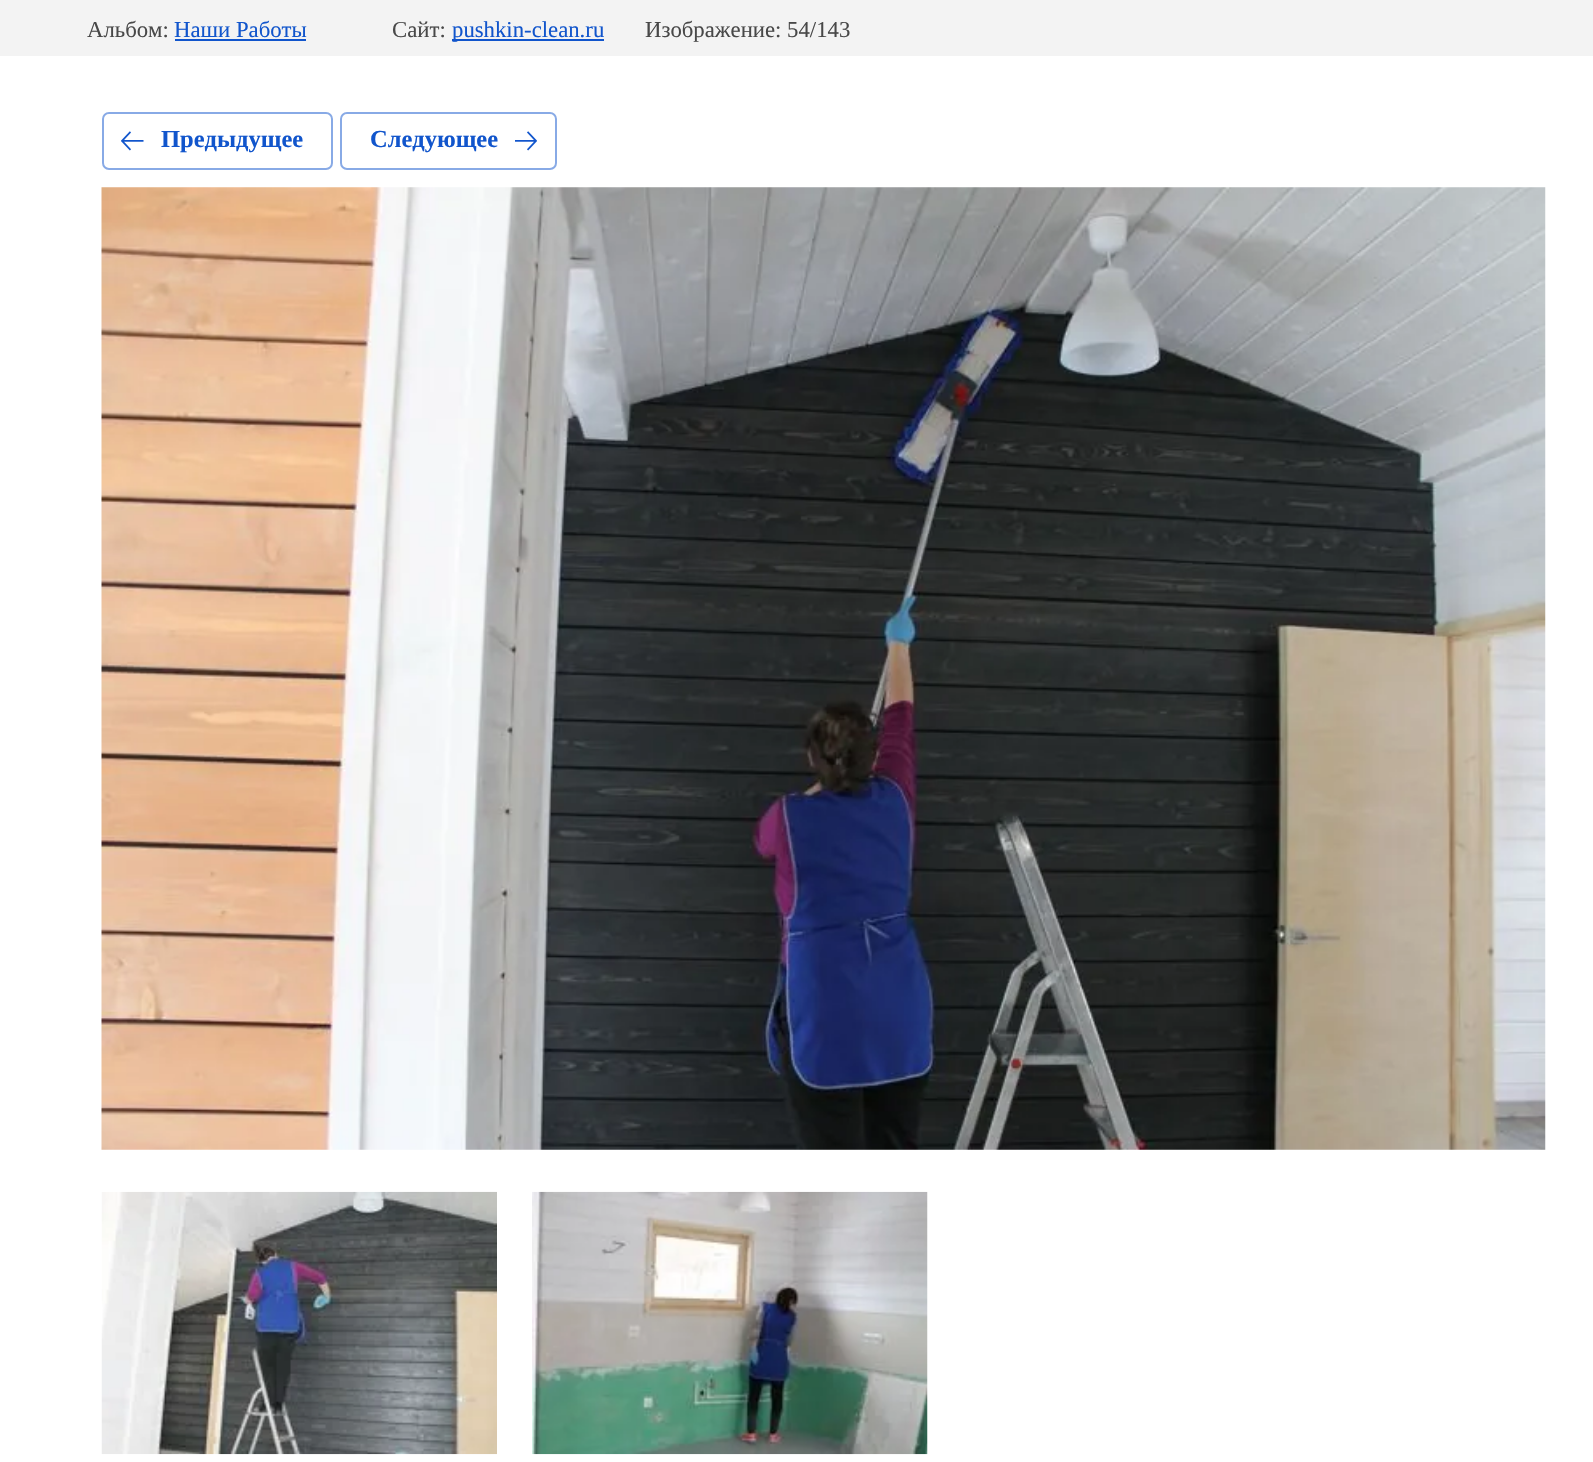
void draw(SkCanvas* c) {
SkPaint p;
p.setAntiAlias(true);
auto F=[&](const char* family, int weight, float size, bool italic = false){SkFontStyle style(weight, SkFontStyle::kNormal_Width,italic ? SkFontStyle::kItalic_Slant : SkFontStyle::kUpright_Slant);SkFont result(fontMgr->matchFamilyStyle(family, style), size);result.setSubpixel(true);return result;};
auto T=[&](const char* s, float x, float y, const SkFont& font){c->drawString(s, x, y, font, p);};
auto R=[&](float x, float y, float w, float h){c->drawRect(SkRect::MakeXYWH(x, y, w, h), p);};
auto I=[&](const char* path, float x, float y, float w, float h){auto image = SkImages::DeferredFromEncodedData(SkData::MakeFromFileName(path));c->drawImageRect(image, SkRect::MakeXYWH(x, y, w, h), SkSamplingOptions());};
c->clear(0xffffffff);
p.setColor(0xfff3f3f3);
R(0,0,1593,56);
auto f1 = F("Liberation Serif",400,22.75);
p.setColor(0xff484848);
T("Альбом:",87,37,f1);
p.setColor(0xff1155cc);
T("Наши Работы",174,37,f1);
R(175,39,131,2);
p.setColor(0xff484848);
T("Сайт:",392,37,f1);
p.setColor(0xff1155cc);
R(452,39,152,2);
T("pushkin-clean.ru",452,37,f1);
p.setColor(0xff484848);
T("Изображение: 54/143",645,37,f1);
p.setStroke(true);
p.setStrokeWidth(2);
p.setColor(0xff88aae6);
c->drawRoundRect(SkRect::MakeXYWH(103,113,229,56),6,6,p);
I("1.png",121,131,23,20);
auto f2 = F("Liberation Serif",700,24.5);
p.setStroke(false);
p.setColor(0xff1155cc);
T("Предыдущее",161,147,f2);
p.setStroke(true);
p.setColor(0xff88aae6);
c->drawRoundRect(SkRect::MakeXYWH(341,113,215,56),6,6,p);
p.setStroke(false);
p.setColor(0xff1155cc);
T("Следующее",370,147,f2);
I("2.png",515,131,22,20);
I("3.png",101,187,1445,963);
I("4.png",101,1191,396,264);
I("5.png",532,1191,396,264);
}
